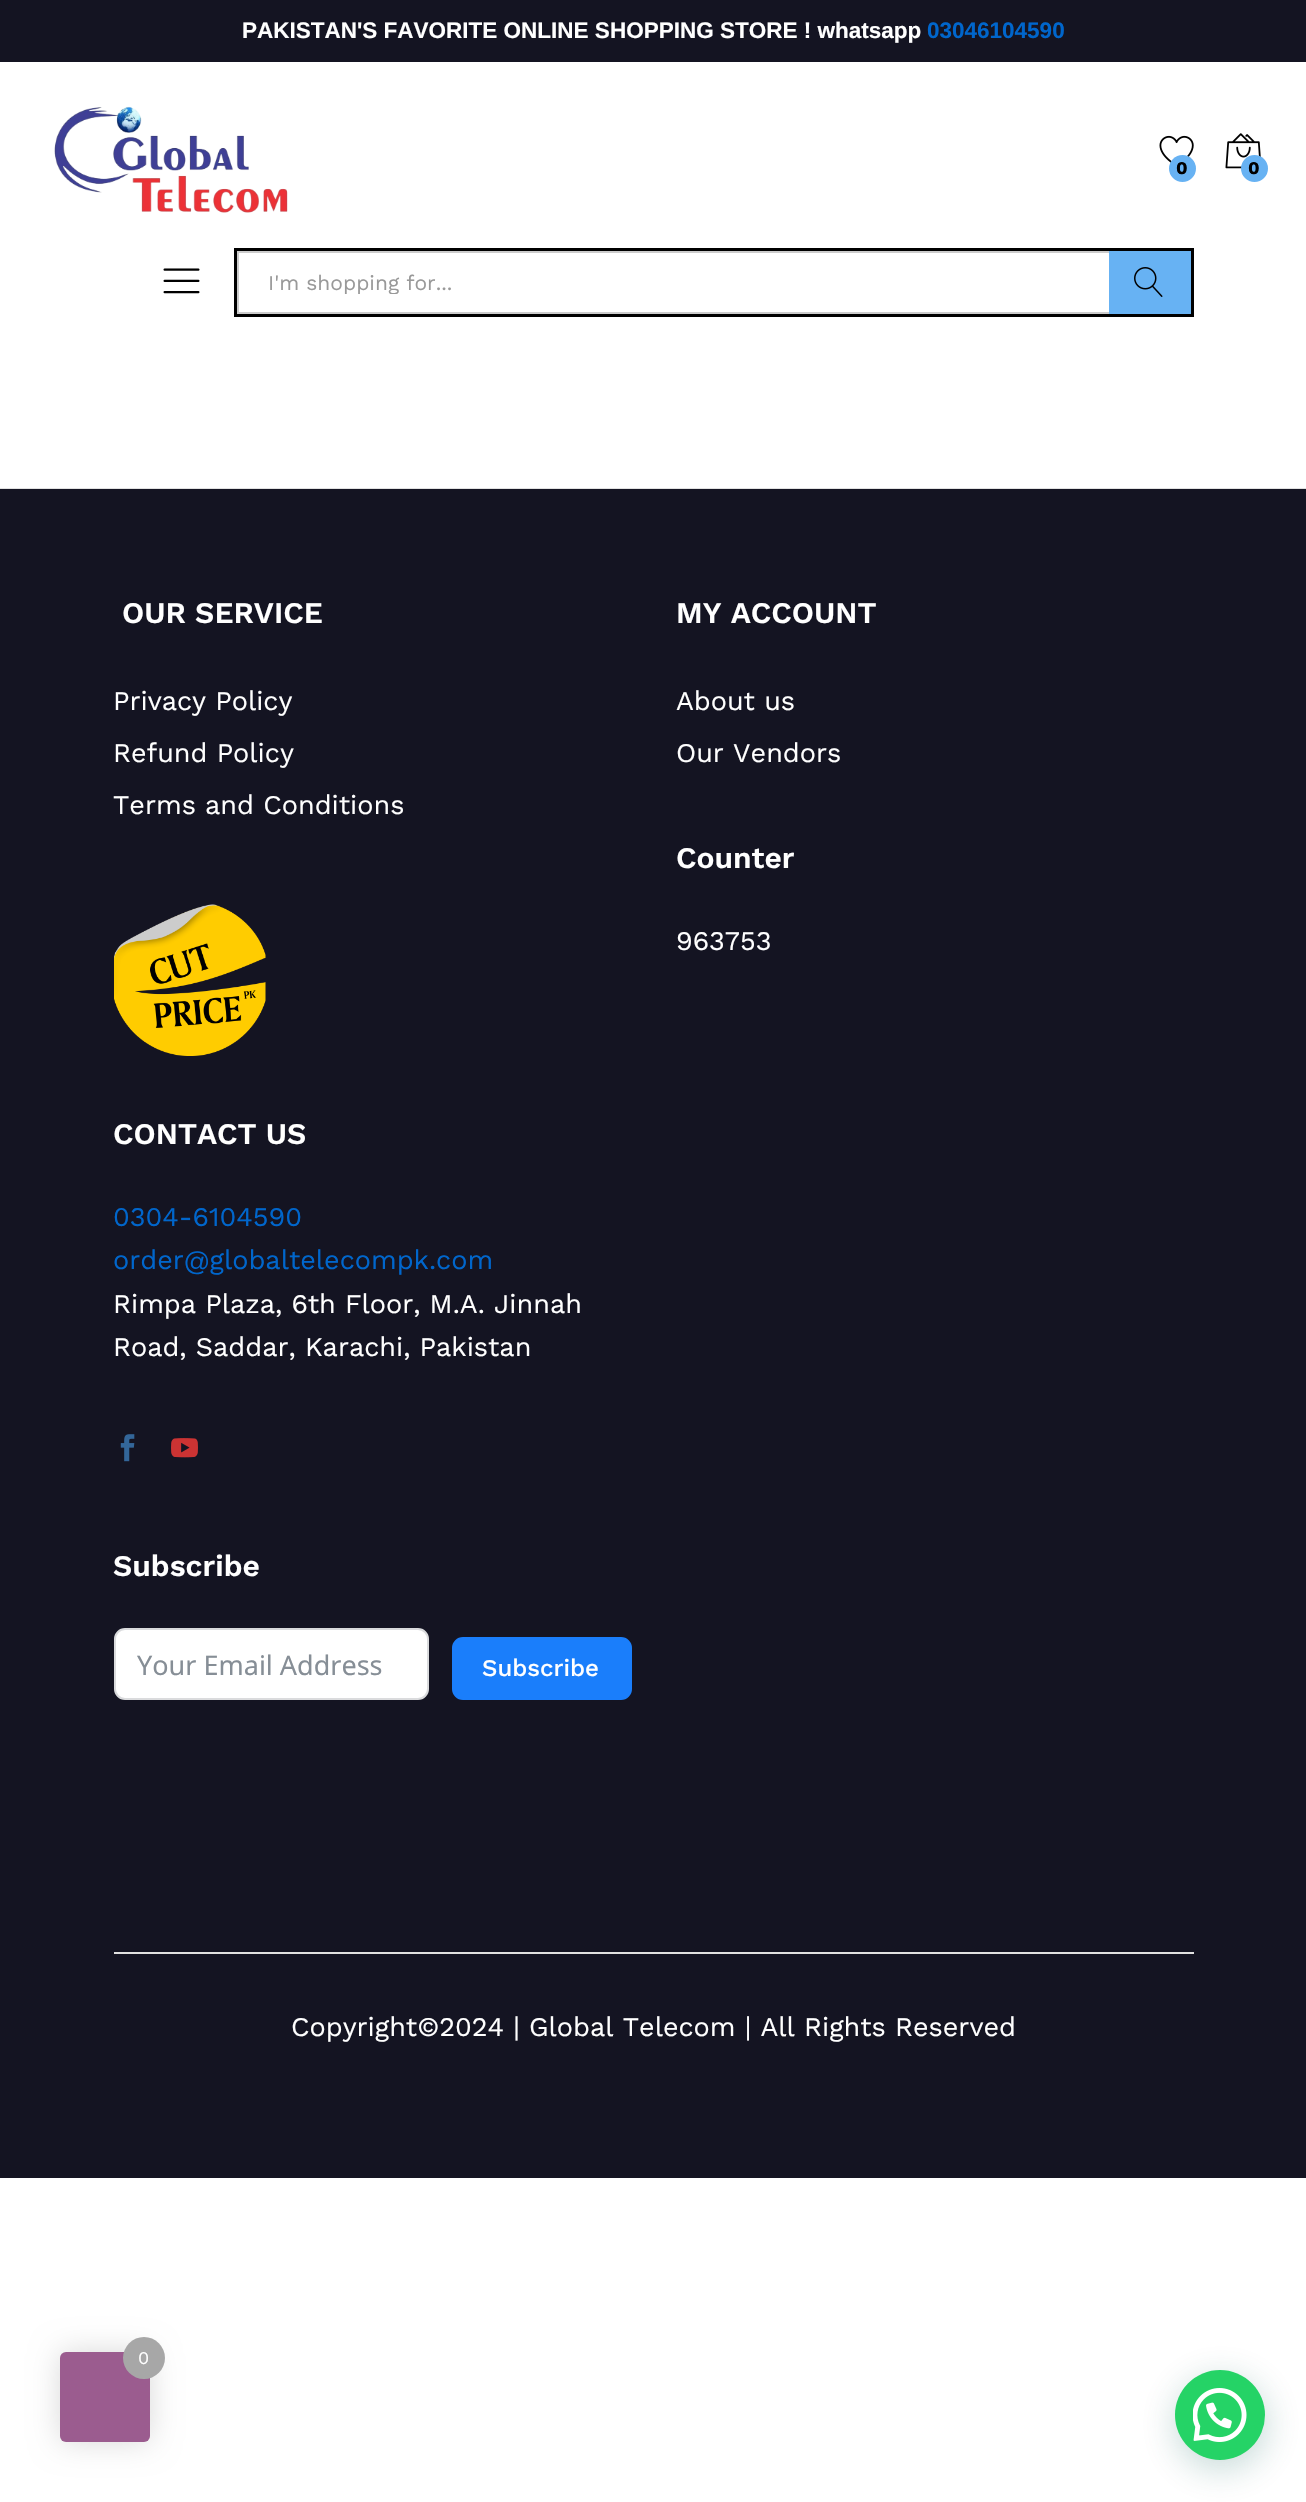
void draw(SkCanvas* c) {
SkPaint p;
p.setAntiAlias(true);
auto F=[&](const char* family, int weight, float size, bool italic = false){SkFontStyle style(weight, SkFontStyle::kNormal_Width,italic ? SkFontStyle::kItalic_Slant : SkFontStyle::kUpright_Slant);SkFont result(fontMgr->matchFamilyStyle(family, style), size);result.setSubpixel(true);return result;};
auto T=[&](const char* s, float x, float y, const SkFont& font){c->drawString(s, x, y, font, p);};
auto R=[&](float x, float y, float w, float h){c->drawRect(SkRect::MakeXYWH(x, y, w, h), p);};
auto Q=[&](float x, float y, float w, float h, float radius){c->drawRoundRect(SkRect::MakeXYWH(x, y, w, h), radius, radius, p);};
auto I=[&](const char* path, float x, float y, float w, float h){auto image = SkImages::DeferredFromEncodedData(SkData::MakeFromFileName(path));c->drawImageRect(image, SkRect::MakeXYWH(x, y, w, h), SkSamplingOptions());};
c->clear(0xffffffff);
p.setColor(0xff141422);
R(0,0,1306,62);
auto f1 = F("Liberation Sans",700,22.5);
p.setColor(0xffffffff);
T("PAKISTAN'S FAVORITE ONLINE SHOPPING STORE ! whatsapp",242,38,f1);
p.setColor(0xff0066cc);
T("03046104590",927,38,f1);
I("1.png",54,106,234,107);
I("2.png",1159,135,35,28);
p.setColor(0xff67b2f3);
c->drawCircle(1182.5,168.5,13.5,p);
auto f2 = F("Work Sans",700,18);
p.setColor(0xff000000);
T("0",1176,174,f2);
I("3.png",1225,133,36,36);
p.setColor(0xff67b2f3);
c->drawCircle(1254.5,168.5,13.5,p);
p.setColor(0xff000000);
T("0",1248,174,f2);
I("4.png",163,268,37,26);
p.setStroke(true);
p.setStrokeWidth(3);
c->drawRect(SkRect::MakeXYWH(235.5,249.5,957,66),p);
p.setStroke(false);
p.setColor(0xffcccccc);
R(237,251,872,2);
R(237,312,872,2);
R(237,251,2,63);
c->save();
c->clipRect(SkRect::MakeXYWH(269,270,810,24));
auto f3 = F("Work Sans",400,21);
p.setColor(0xff999999);
T("I'm shopping for...",268,290,f3);
c->restore();
p.setColor(0xff67b2f3);
R(1109,251,82,63);
I("5.png",1134,267,29,30);
p.setColor(0xffe1e1e1);
R(0,488,1306,1);
p.setColor(0xff141422);
R(0,489,1306,1689);
auto f4 = F("Work Sans",600,30);
p.setColor(0xffffffff);
T("OUR SERVICE",122,623,f4);
auto f5 = F("Work Sans",400,27);
T("Privacy Policy",113,710,f5);
T("Refund Policy",113,762,f5);
T("Terms and Conditions",113,814,f5);
I("6.png",114,904,152,152);
T("MY ACCOUNT",676,623,f4);
T("About us",676,710,f5);
T("Our Vendors",676,762,f5);
T("Counter",676,868,f4);
T("963753",676,950,f5);
T("CONTACT US",113,1144,f4);
p.setColor(0xff0066cc);
T("0304-6104590",113,1226,f5);
T("order@globaltelecompk.com",113,1269,f5);
p.setColor(0xffffffff);
T("Rimpa Plaza, 6th Floor, M.A. Jinnah",113,1313,f5);
T("Road, Saddar, Karachi, Pakistan",113,1356,f5);
I("7.png",120,1434,15,28);
I("8.png",171,1438,27,20);
T("Subscribe",113,1576,f4);
c->drawRoundRect(SkRect::MakeXYWH(115,1629,313,70),10,10,p);
p.setStroke(true);
p.setStrokeWidth(2);
p.setColor(0xffdadbdd);
c->drawRoundRect(SkRect::MakeXYWH(115,1629,313,70),10,10,p);
auto f6 = F("Noto Sans",400,27);
p.setStroke(false);
p.setColor(0xff868e96);
T("Your Email Address",137,1675,f6);
p.setColor(0xff1a7efb);
c->drawRoundRect(SkRect::MakeXYWH(453,1638,178,61),10,10,p);
p.setStroke(true);
c->drawRoundRect(SkRect::MakeXYWH(453,1638,178,61),10,10,p);
auto f7 = F("Work Sans",500,24);
p.setStroke(false);
p.setColor(0xffffffff);
T("Subscribe",482,1676,f7);
p.setColor(0xffe1e1e1);
R(114,1952,1080,2);
p.setColor(0xffffffff);
T("Copyright©2024 | Global Telecom | All Rights Reserved",291,2036,f5);
p.setColor(0x26000000);
p.setMaskFilter(SkMaskFilter::MakeBlur(kNormal_SkBlurStyle, 15));
c->drawRoundRect(SkRect::MakeXYWH(60,2352,90,90),6,6,p);
p.setMaskFilter(nullptr);
p.setColor(0xff9b5c8f);
Q(60,2352,90,90,6);
p.setColor(0xffa7a7a7);
c->drawCircle(144,2358,21,p);
auto f8 = F("Work Sans",400,18);
p.setColor(0xffffffff);
T("0",138,2364,f8);
p.setColor(0x3d075e54);
p.setMaskFilter(SkMaskFilter::MakeBlur(kNormal_SkBlurStyle, 18));
c->drawRoundRect(SkRect::MakeXYWH(1176,2379,90,90),45,45,p);
p.setMaskFilter(nullptr);
p.setColor(0xff25d366);
c->drawCircle(1220,2415,45,p);
I("9.png",1193,2388,54,54);
}
